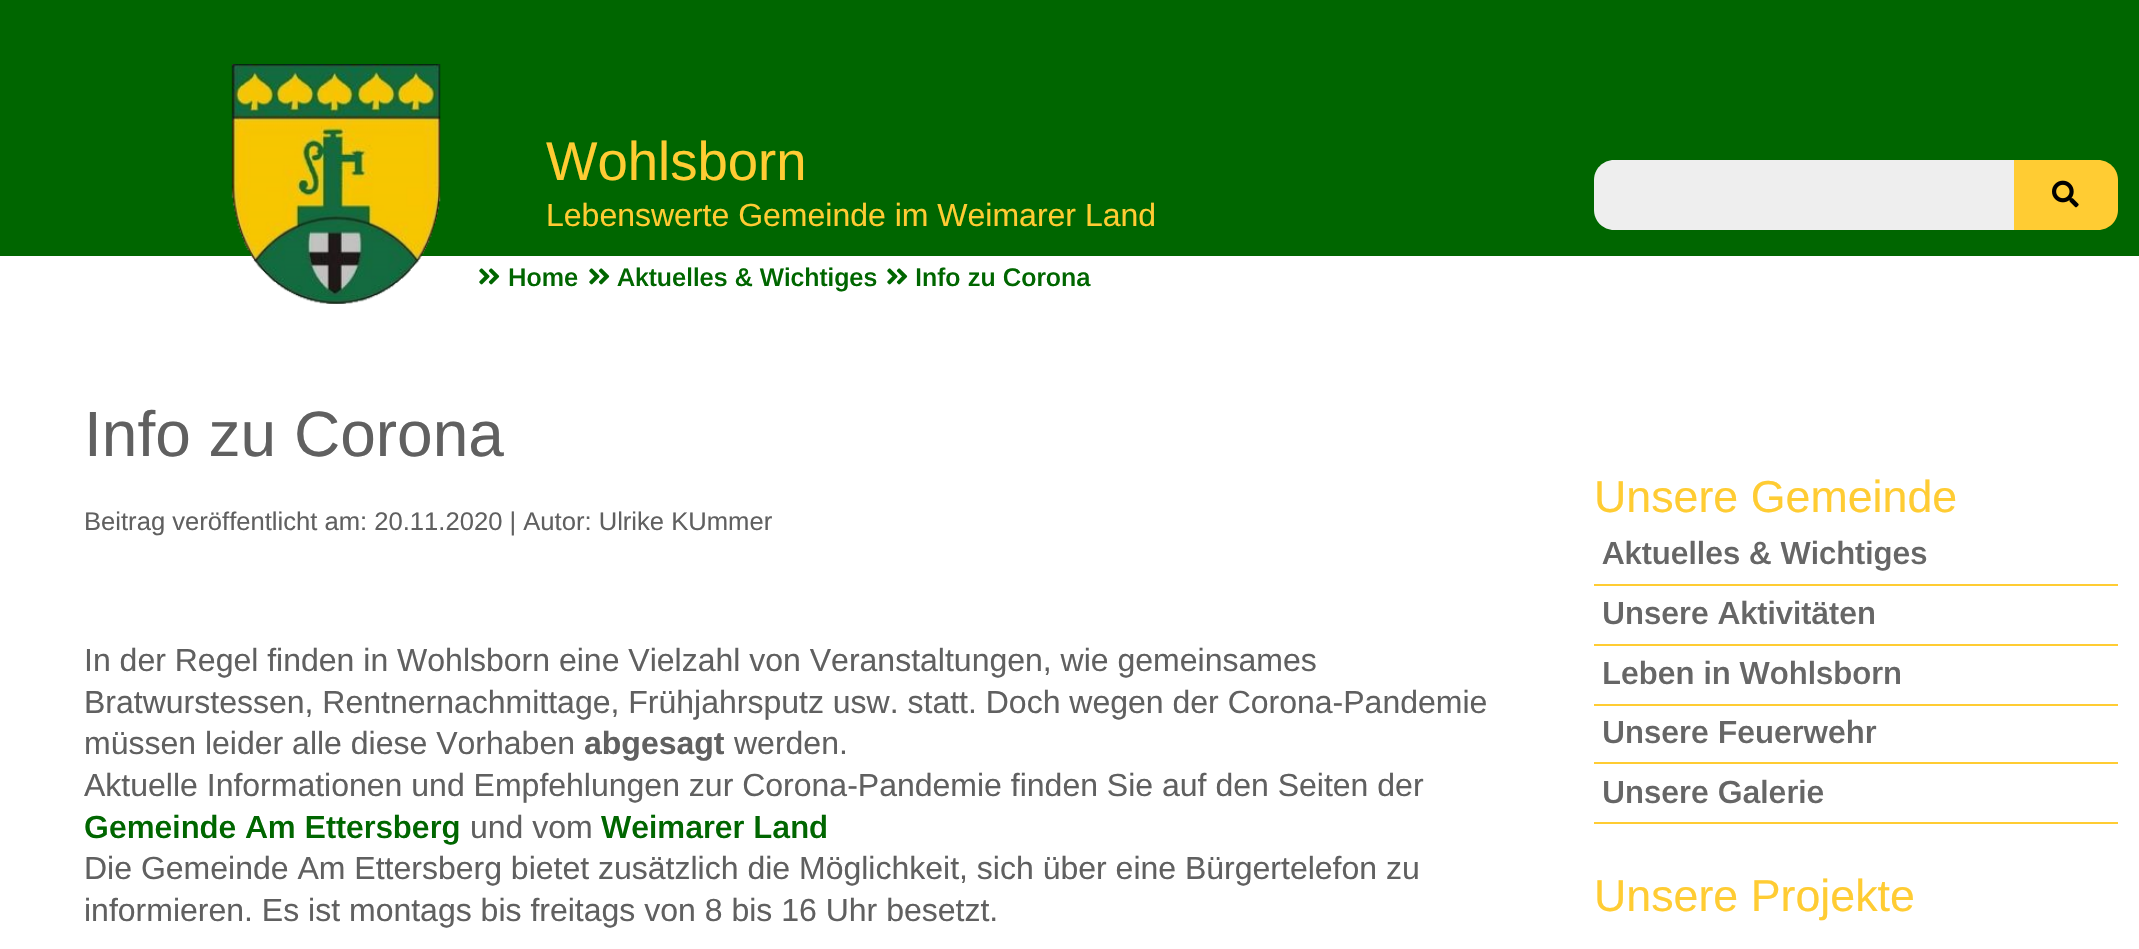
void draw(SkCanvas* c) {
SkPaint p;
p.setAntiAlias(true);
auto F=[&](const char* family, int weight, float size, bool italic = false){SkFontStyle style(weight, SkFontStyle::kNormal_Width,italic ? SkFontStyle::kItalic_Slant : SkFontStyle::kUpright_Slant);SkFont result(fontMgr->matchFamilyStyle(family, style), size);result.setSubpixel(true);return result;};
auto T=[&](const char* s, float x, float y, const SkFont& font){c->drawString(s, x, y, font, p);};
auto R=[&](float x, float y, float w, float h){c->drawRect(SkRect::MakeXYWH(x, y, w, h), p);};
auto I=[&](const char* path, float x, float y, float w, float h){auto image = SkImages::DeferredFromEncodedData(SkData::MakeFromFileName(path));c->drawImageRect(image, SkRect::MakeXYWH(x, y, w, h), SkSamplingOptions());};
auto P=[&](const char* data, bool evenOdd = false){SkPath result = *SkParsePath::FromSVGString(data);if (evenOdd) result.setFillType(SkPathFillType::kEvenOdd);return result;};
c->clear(0xffffffff);
p.setColor(0xff006600);
R(0,0,2139,256);
I("1.png",231,64,210,240);
auto f1 = F("Arimo",400,54.5);
p.setColor(0xffffcc33);
T("Wohlsborn",546,180,f1);
auto f2 = F("Arimo",400,32);
T("Lebenswerte Gemeinde im Weimarer Land",546,226,f2);
p.setColor(0xffeeeeee);
c->drawPath(P("M1614 160h400v70h-400c-11 0-20-9-20-20v-30c0-11 9-20 20-20z"),p);
p.setColor(0xffffcc33);
c->drawPath(P("M2014 160h84c11 0 20 9 20 20v30c0 11-9 20-20 20h-84z"),p);
I("2.png",2052,180,27,28);
I("3.png",479,268,21,17);
auto f3 = F("Arimo",600,25.6);
p.setColor(0xff006600);
T("Home",508,286,f3);
I("3.png",589,268,21,17);
T("Aktuelles & Wichtiges",617,286,f3);
I("3.png",887,268,21,17);
T("Info zu Corona",915,286,f3);
auto f4 = F("Arimo",400,64);
p.setColor(0xff606060);
T("Info zu Corona",84,456,f4);
auto f5 = F("Arimo",400,25.6);
T("Beitrag veröffentlicht am: 20.11.2020 | Autor: Ulrike KUmmer",84,530,f5);
T("In der Regel finden in Wohlsborn eine Vielzahl von Veranstaltungen, wie gemeinsames",84,671,f2);
T("Bratwurstessen, Rentnernachmittage, Frühjahrsputz usw. statt. Doch wegen der Corona-Pandemie",84,713,f2);
T("müssen leider alle diese Vorhaben",84,754,f2);
auto f6 = F("Arimo",700,32);
T("abgesagt",584,754,f6);
T("werden.",734,754,f2);
T("Aktuelle Informationen und Empfehlungen zur Corona-Pandemie finden Sie auf den Seiten der",84,796,f2);
auto f7 = F("Arimo",600,32);
p.setColor(0xff006600);
T("Gemeinde Am Ettersberg",84,838,f7);
p.setColor(0xff606060);
T("und vom",470,838,f2);
p.setColor(0xff006600);
T("Weimarer Land",601,838,f7);
p.setColor(0xff606060);
T("Die Gemeinde Am Ettersberg bietet zusätzlich die Möglichkeit, sich über eine Bürgertelefon zu",84,879,f2);
T("informieren. Es ist montags bis freitags von 8 bis 16 Uhr besetzt.",84,921,f2);
auto f8 = F("Arimo",400,44.75);
p.setColor(0xffffcc33);
T("Unsere Gemeinde",1594,512,f8);
R(1594,584,524,2);
p.setColor(0xff666666);
T("Aktuelles & Wichtiges",1602,564,f7);
p.setColor(0xffffcc33);
R(1594,644,524,2);
p.setColor(0xff666666);
T("Unsere Aktivitäten",1602,624,f7);
p.setColor(0xffffcc33);
R(1594,704,524,2);
p.setColor(0xff666666);
T("Leben in Wohlsborn",1602,684,f7);
p.setColor(0xffffcc33);
R(1594,762,524,2);
p.setColor(0xff666666);
T("Unsere Feuerwehr",1602,743,f7);
p.setColor(0xffffcc33);
R(1594,822,524,2);
p.setColor(0xff666666);
T("Unsere Galerie",1602,803,f7);
p.setColor(0xffffcc33);
T("Unsere Projekte",1594,911,f8);
}
